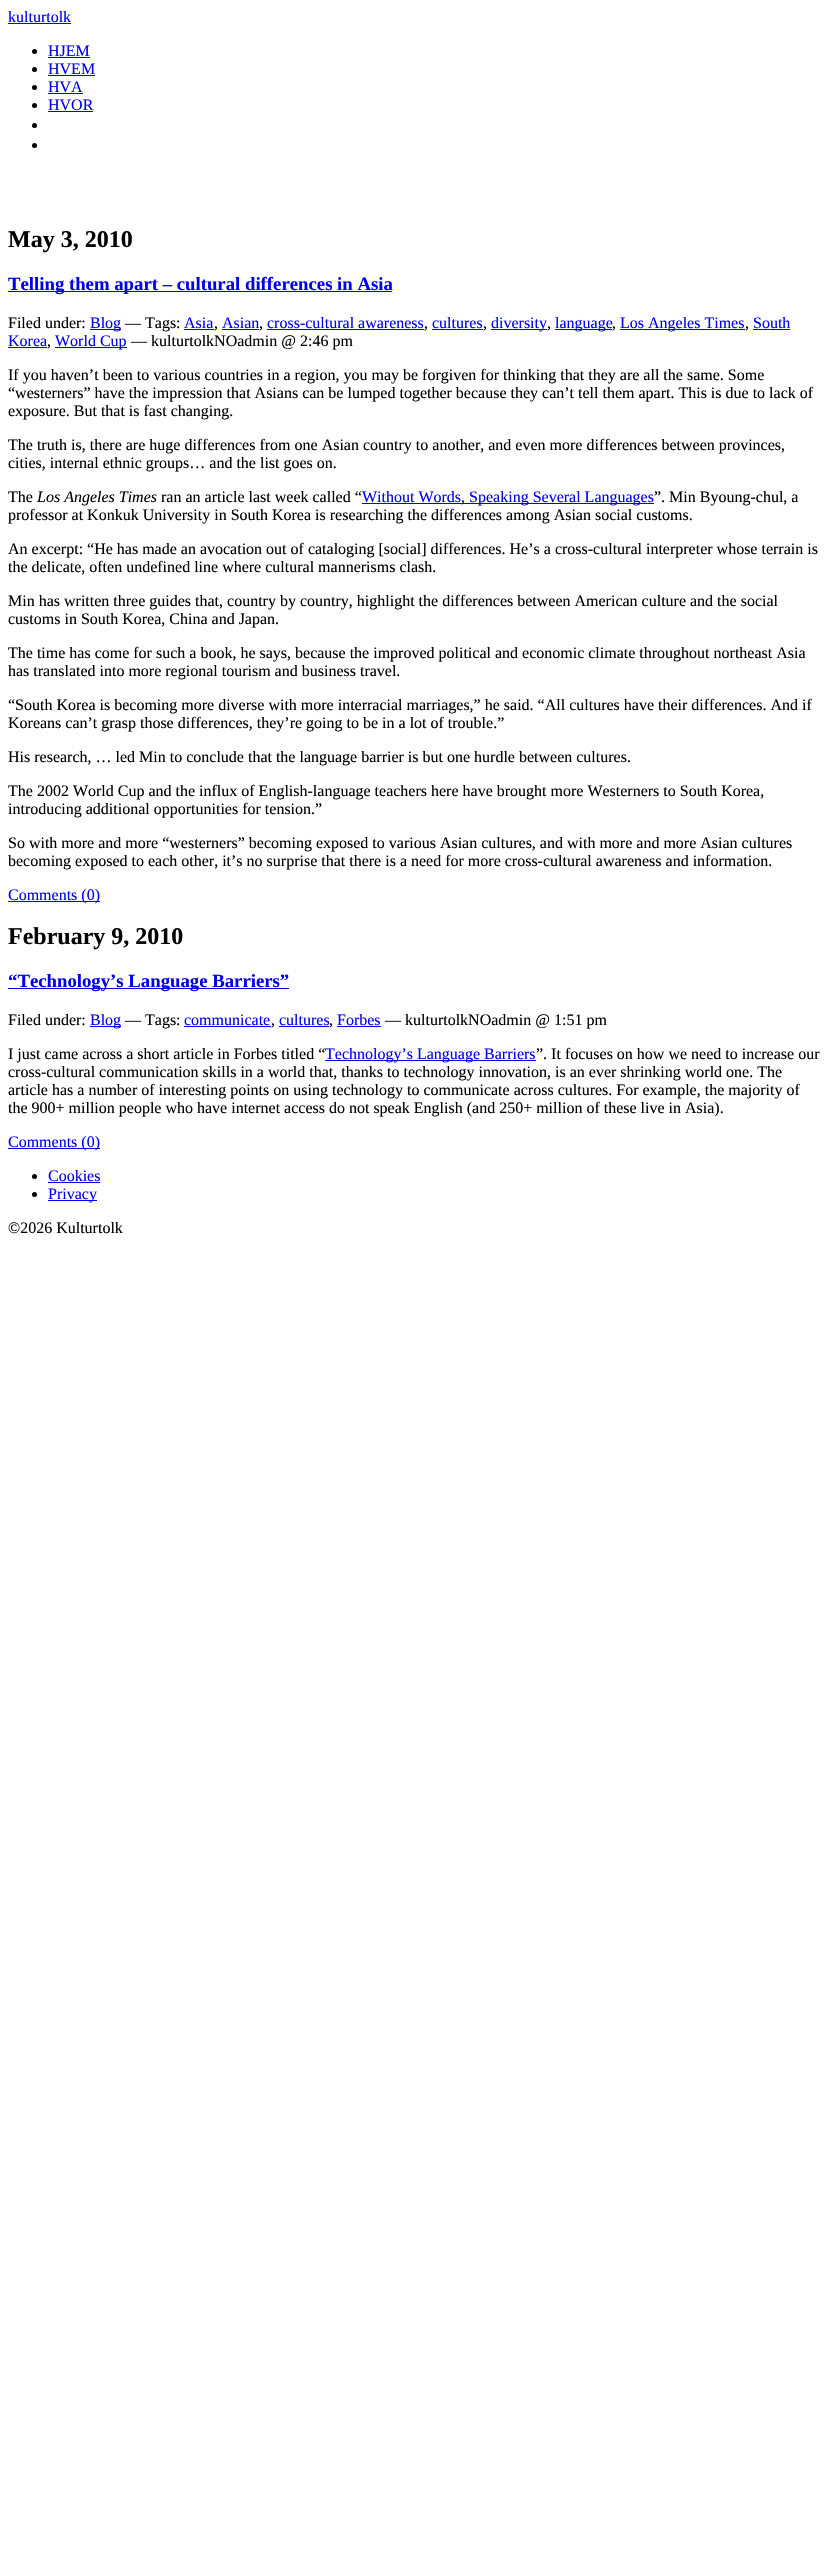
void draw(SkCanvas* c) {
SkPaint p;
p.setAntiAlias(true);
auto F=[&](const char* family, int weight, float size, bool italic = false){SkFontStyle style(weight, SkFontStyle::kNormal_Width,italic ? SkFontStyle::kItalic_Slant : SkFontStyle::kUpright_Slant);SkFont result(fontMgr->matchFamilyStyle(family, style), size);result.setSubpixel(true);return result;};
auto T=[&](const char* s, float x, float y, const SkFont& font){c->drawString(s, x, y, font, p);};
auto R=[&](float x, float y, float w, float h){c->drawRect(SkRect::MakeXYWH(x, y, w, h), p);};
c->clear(0xffffffff);
auto f1 = F("Liberation Serif",400,16);
p.setColor(0xff0000ee);
T("kulturtolk",8,22,f1);
R(8,23,63,1);
p.setColor(0xff000000);
c->drawCircle(34.5,51.5,2.5,p);
p.setColor(0xff0000ee);
T("HJEM",48,56,f1);
R(48,57,42,1);
p.setColor(0xff000000);
c->drawCircle(34.5,69.5,2.5,p);
p.setColor(0xff0000ee);
T("HVEM",48,74,f1);
R(48,75,47,1);
p.setColor(0xff000000);
c->drawCircle(34.5,87.5,2.5,p);
p.setColor(0xff0000ee);
T("HVA",48,92,f1);
R(48,93,35,1);
p.setColor(0xff000000);
c->drawCircle(34.5,105.5,2.5,p);
p.setColor(0xff0000ee);
T("HVOR",48,110,f1);
R(48,111,45,1);
p.setColor(0xff000000);
c->drawCircle(34.5,125.5,2.5,p);
c->drawCircle(34.5,145.5,2.5,p);
auto f2 = F("Liberation Serif",700,24);
T("May 3, 2010",8,247,f2);
p.setColor(0xff0000ee);
R(8,291,384,1);
auto f3 = F("Liberation Serif",700,18.75);
T("Telling them apart – cultural differences in Asia",8,290,f3);
p.setColor(0xff000000);
T("Filed under:",8,328,f1);
p.setColor(0xff0000ee);
R(90,329,31,1);
T("Blog",90,328,f1);
p.setColor(0xff000000);
T("— Tags:",125,328,f1);
p.setColor(0xff0000ee);
T("Asia",184,328,f1);
R(184,329,30,1);
p.setColor(0xff000000);
T(",",214,328,f1);
p.setColor(0xff0000ee);
T("Asian",222,328,f1);
R(222,329,37,1);
p.setColor(0xff000000);
T(",",259,328,f1);
p.setColor(0xff0000ee);
T("cross-cultural awareness",267,328,f1);
R(267,329,157,1);
p.setColor(0xff000000);
T(",",424,328,f1);
p.setColor(0xff0000ee);
T("cultures",432,328,f1);
R(432,329,51,1);
p.setColor(0xff000000);
T(",",483,328,f1);
p.setColor(0xff0000ee);
R(491,329,56,1);
T("diversity",491,328,f1);
p.setColor(0xff000000);
T(",",547,328,f1);
p.setColor(0xff0000ee);
R(555,329,57,1);
T("language",555,328,f1);
p.setColor(0xff000000);
T(",",612,328,f1);
p.setColor(0xff0000ee);
R(620,329,125,1);
T("Los Angeles Times",620,328,f1);
p.setColor(0xff000000);
T(",",745,328,f1);
p.setColor(0xff0000ee);
T("South",753,328,f1);
R(753,329,37,1);
T("Korea",8,346,f1);
R(8,347,39,1);
p.setColor(0xff000000);
T(",",47,346,f1);
p.setColor(0xff0000ee);
R(55,347,72,1);
T("World Cup",55,346,f1);
p.setColor(0xff000000);
T("— kulturtolkNOadmin @ 2:46 pm",131,346,f1);
T("If you haven’t been to various countries in a region, you may be forgiven for thinking that they are all the same. Some",8,380,f1);
T("“westerners” have the impression that Asians can be lumped together because they can’t tell them apart. This is due to lack of",8,398,f1);
T("exposure. But that is fast changing.",8,416,f1);
T("The truth is, there are huge differences from one Asian country to another, and even more differences between provinces,",8,450,f1);
T("cities, internal ethnic groups… and the list goes on.",8,468,f1);
T("The",8,502,f1);
auto f4 = F("Liberation Serif",400,16,true);
T("Los Angeles Times",37,502,f4);
T("ran an article last week called “",161,502,f1);
p.setColor(0xff0000ee);
R(362,503,292,1);
T("Without Words, Speaking Several Languages",362,502,f1);
p.setColor(0xff000000);
T("”. Min Byoung-chul, a",654,502,f1);
T("professor at Konkuk University in South Korea is researching the differences among Asian social customs.",8,520,f1);
T("An excerpt: “He has made an avocation out of cataloging [social] differences. He’s a cross-cultural interpreter whose terrain is",8,554,f1);
T("the delicate, often undefined line where cultural mannerisms clash.",8,572,f1);
T("Min has written three guides that, country by country, highlight the differences between American culture and the social",8,606,f1);
T("customs in South Korea, China and Japan.",8,624,f1);
T("The time has come for such a book, he says, because the improved political and economic climate throughout northeast Asia",8,658,f1);
T("has translated into more regional tourism and business travel.",8,676,f1);
T("“South Korea is becoming more diverse with more interracial marriages,” he said. “All cultures have their differences. And if",8,710,f1);
T("Koreans can’t grasp those differences, they’re going to be in a lot of trouble.”",8,728,f1);
T("His research, … led Min to conclude that the language barrier is but one hurdle between cultures.",8,762,f1);
T("The 2002 World Cup and the influx of English-language teachers here have brought more Westerners to South Korea,",8,796,f1);
T("introducing additional opportunities for tension.”",8,814,f1);
T("So with more and more “westerners” becoming exposed to various Asian cultures, and with more and more Asian cultures",8,848,f1);
T("becoming exposed to each other, it’s no surprise that there is a need for more cross-cultural awareness and information.",8,866,f1);
p.setColor(0xff0000ee);
R(8,901,92,1);
T("Comments (0)",8,900,f1);
p.setColor(0xff000000);
T("February 9, 2010",8,944,f2);
p.setColor(0xff0000ee);
R(8,988,281,1);
T("“Technology’s Language Barriers”",8,987,f3);
p.setColor(0xff000000);
T("Filed under:",8,1025,f1);
p.setColor(0xff0000ee);
R(90,1026,31,1);
T("Blog",90,1025,f1);
p.setColor(0xff000000);
T("— Tags:",125,1025,f1);
p.setColor(0xff0000ee);
T("communicate",184,1025,f1);
R(184,1026,87,1);
p.setColor(0xff000000);
T(",",271,1025,f1);
p.setColor(0xff0000ee);
T("cultures",279,1025,f1);
R(279,1026,50,1);
p.setColor(0xff000000);
T(",",329,1025,f1);
p.setColor(0xff0000ee);
T("Forbes",337,1025,f1);
R(337,1026,44,1);
p.setColor(0xff000000);
T("— kulturtolkNOadmin @ 1:51 pm",385,1025,f1);
T("I just came across a short article in Forbes titled “",8,1059,f1);
p.setColor(0xff0000ee);
R(325,1060,211,1);
T("Technology’s Language Barriers",325,1059,f1);
p.setColor(0xff000000);
T("”. It focuses on how we need to increase our",536,1059,f1);
T("cross-cultural communication skills in a world that, thanks to technology innovation, is an ever shrinking world one. The",8,1077,f1);
T("article has a number of interesting points on using technology to communicate across cultures. For example, the majority of",8,1095,f1);
T("the 900+ million people who have internet access do not speak English (and 250+ million of these live in Asia).",8,1113,f1);
p.setColor(0xff0000ee);
R(8,1148,92,1);
T("Comments (0)",8,1147,f1);
p.setColor(0xff000000);
c->drawCircle(34.5,1176.5,2.5,p);
p.setColor(0xff0000ee);
T("Cookies",48,1181,f1);
R(48,1182,52,1);
p.setColor(0xff000000);
c->drawCircle(34.5,1194.5,2.5,p);
p.setColor(0xff0000ee);
R(48,1200,49,1);
T("Privacy",48,1199,f1);
p.setColor(0xff000000);
T("©2026 Kulturtolk",8,1233,f1);
}
